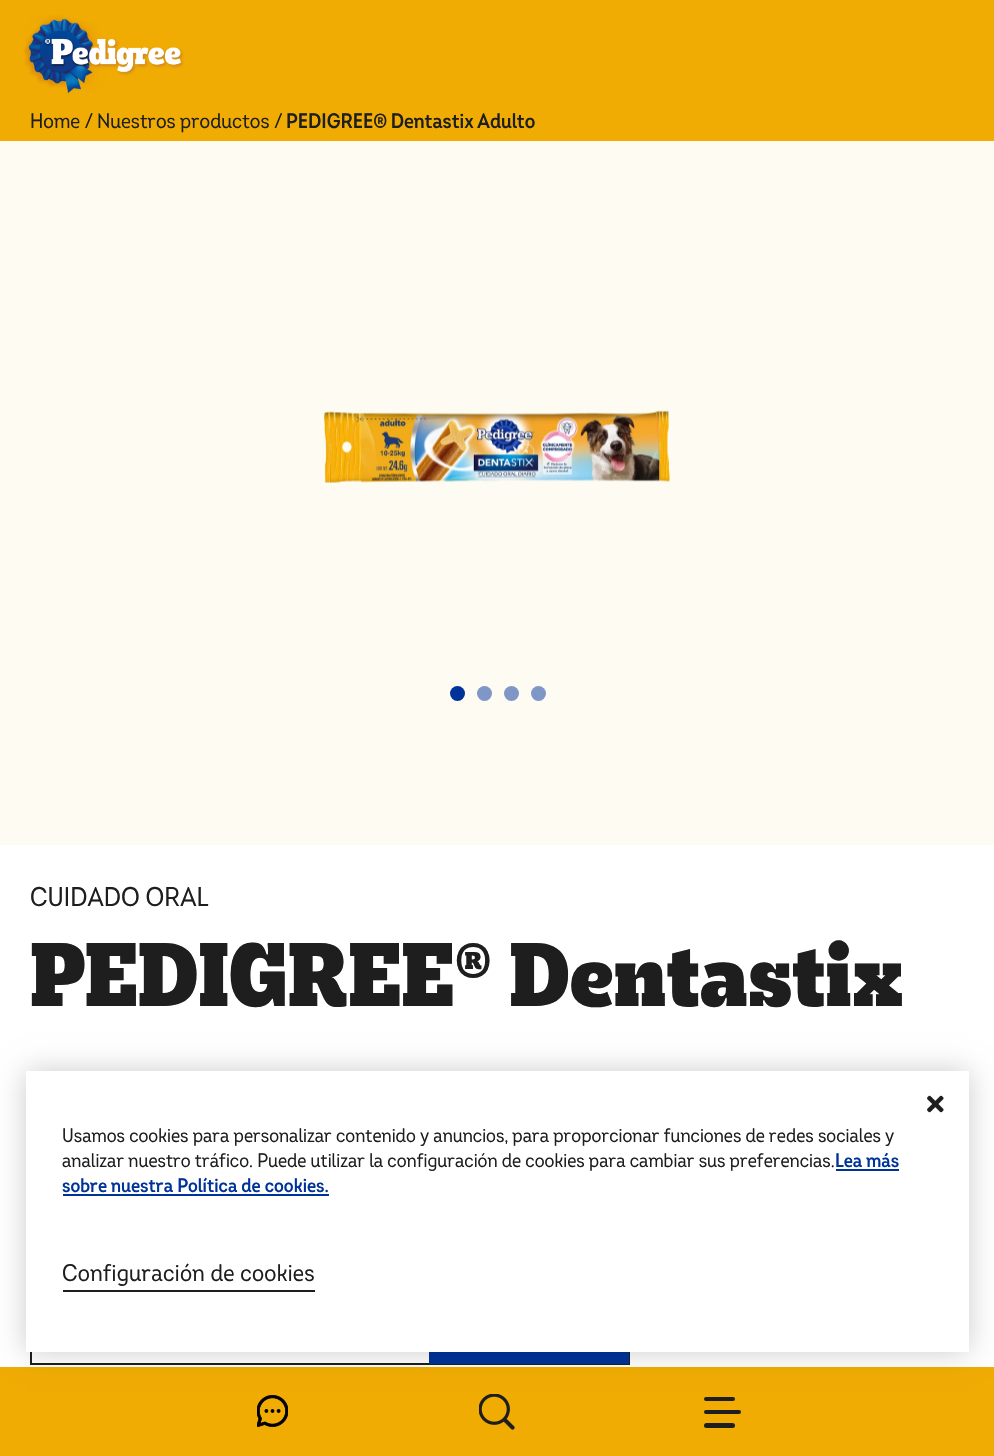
void draw(SkCanvas* c) {
SkPaint p;
p.setAntiAlias(true);
auto F=[&](const char* family, int weight, float size, bool italic = false){SkFontStyle style(weight, SkFontStyle::kNormal_Width,italic ? SkFontStyle::kItalic_Slant : SkFontStyle::kUpright_Slant);SkFont result(fontMgr->matchFamilyStyle(family, style), size);result.setSubpixel(true);return result;};
auto T=[&](const char* s, float x, float y, const SkFont& font){c->drawString(s, x, y, font, p);};
auto L=[&](const char* s, float x, float y, const SkFont& font, const SkPaint& ink, float letter, float word){std::vector<SkGlyphID> glyphs(font.countText(s, strlen(s), SkTextEncoding::kUTF8));std::vector<float> xs(glyphs.size());font.textToGlyphs(s, strlen(s), SkTextEncoding::kUTF8, glyphs);font.getXPos(glyphs, xs, x);float extra = 0;for (size_t i = 0; i < glyphs.size(); i++) {xs[i] += extra;extra += letter + word * (glyphs[i] == font.unicharToGlyph(' '));}c->drawTextBlob(SkTextBlob::MakeFromPosHGlyphs(glyphs, xs, y, font), 0, 0, ink);};
auto R=[&](float x, float y, float w, float h){c->drawRect(SkRect::MakeXYWH(x, y, w, h), p);};
auto Q=[&](float x, float y, float w, float h, float radius){c->drawRoundRect(SkRect::MakeXYWH(x, y, w, h), radius, radius, p);};
auto I=[&](const char* path, float x, float y, float w, float h){auto image = SkImages::DeferredFromEncodedData(SkData::MakeFromFileName(path));c->drawImageRect(image, SkRect::MakeXYWH(x, y, w, h), SkSamplingOptions());};
c->clear(0xfffefbf2);
p.setColor(0xfff0ac03);
R(0,0,994,141);
I("1.png",23,15,161,79);
auto f1 = F("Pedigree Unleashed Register",400,21);
p.setColor(0xff1e1e1e);
T("Home /",30,128,f1);
T("Nuestros productos /",97,128,f1);
auto f2 = F("Pedigree Unleashed Register",600,21);
L("PEDIGREE® Dentastix Adulto",286,128,f2,p,0,-1);
I("2.png",323,410,347,73);
p.setColor(0xff003399);
c->drawCircle(457.5,693.5,7.5,p);
p.setColor(0xff7f97c6);
c->drawCircle(484.5,693.5,7.5,p);
c->drawCircle(511.5,693.5,7.5,p);
c->drawCircle(538.5,693.5,7.5,p);
p.setColor(0xffffffff);
R(0,845,994,522);
auto f3 = F("Pedigree Unleashed Register",400,27);
p.setColor(0xff1e1e1e);
T("CUIDADO ORAL",30,906,f3);
auto f4 = F("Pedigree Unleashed",900,85);
T("PEDIGREE® Dentastix",30,1006,f4);
p.setStroke(true);
p.setStrokeWidth(2);
c->drawRect(SkRect::MakeXYWH(31,1297,598,67),p);
p.setStroke(false);
p.setColor(0xff003399);
R(429,1352,200,12);
p.setColor(0xfff0ac03);
R(0,1367,994,89);
I("3.png",257,1395,31,32);
I("4.png",479,1394,36,36);
p.setColor(0xff1e1e1e);
Q(704,1397,31,4,2);
Q(704,1410,37,4,2);
Q(704,1423,31,5,2.5);
p.setColor(0x33000000);
p.setMaskFilter(SkMaskFilter::MakeBlur(kNormal_SkBlurStyle, 13.5));
c->drawRect(SkRect::MakeXYWH(26,1071,943,281),p);
p.setMaskFilter(nullptr);
p.setColor(0xffffffff);
R(26,1071,943,281);
I("5.png",927,1095,17,18);
auto f5 = F("Pedigree Unleashed Register",400,19.5);
p.setColor(0xff1e1e1e);
T("Usamos cookies para personalizar contenido y anuncios, para proporcionar funciones de redes sociales y",62,1142,f5);
T("analizar nuestro tráfico. Puede utilizar la configuración de cookies para cambiar sus preferencias.",62,1167,f5);
auto f6 = F("Pedigree Unleashed Register",600,19.5);
p.setColor(0xff003399);
T("Lea más",835,1167,f6);
R(836,1169,63,2);
T("sobre nuestra Política de cookies.",62,1192,f6);
R(63,1194,266,2);
auto f7 = F("Pedigree Unleashed Register",400,24);
p.setColor(0xff1e1e1e);
L("Configuración de cookies",62,1281,f7,p,.25,0);
R(63,1290,252,2);
}
